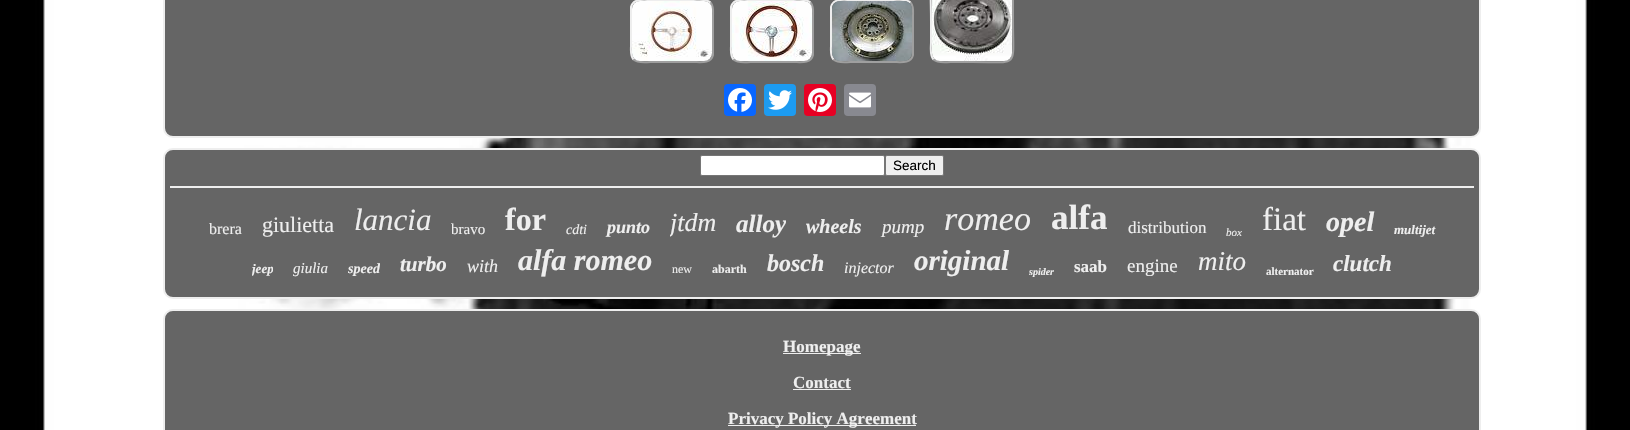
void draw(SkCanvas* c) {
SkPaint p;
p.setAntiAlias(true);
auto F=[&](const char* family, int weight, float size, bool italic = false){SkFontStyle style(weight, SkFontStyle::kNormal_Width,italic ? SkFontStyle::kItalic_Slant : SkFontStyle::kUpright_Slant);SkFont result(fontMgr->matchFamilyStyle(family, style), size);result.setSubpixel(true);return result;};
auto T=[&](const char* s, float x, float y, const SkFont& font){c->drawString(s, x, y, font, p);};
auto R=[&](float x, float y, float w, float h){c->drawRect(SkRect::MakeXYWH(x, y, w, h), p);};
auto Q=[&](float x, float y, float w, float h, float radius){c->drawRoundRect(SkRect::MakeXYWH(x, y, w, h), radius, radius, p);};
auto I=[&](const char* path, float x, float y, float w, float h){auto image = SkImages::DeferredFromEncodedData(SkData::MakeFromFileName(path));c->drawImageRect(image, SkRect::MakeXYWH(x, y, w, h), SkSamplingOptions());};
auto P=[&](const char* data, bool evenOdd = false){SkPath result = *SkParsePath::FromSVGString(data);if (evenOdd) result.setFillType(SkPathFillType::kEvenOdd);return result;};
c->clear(0xffffffff);
I("1.png",0,0,1630,430);
p.setColor(0xff656565);
c->drawRoundRect(SkRect::MakeXYWH(164,-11,1316,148),9,9,p);
p.setStroke(true);
p.setStrokeWidth(2);
p.setColor(0xffeeeeee);
c->drawRoundRect(SkRect::MakeXYWH(164,-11,1316,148),9,9,p);
p.setColor(0xff9f9f9f);
c->drawPath(P("M710.5 2.5c3.5 4 2.5 9 2.5 14v38.5c-2 9-13 7-19.5 7h-43c-5 0-12.5 1.5-17-2.5"),p);
p.setColor(0xffeeeeee);
c->drawPath(P("M633.5 59.5c-3.5-4-2.5-9-2.5-14v-38.5c2-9 13-7 19.5-7h43c5 0 12.5-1.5 17 2.5"),p);
I("2.png",632,1,80,60);
p.setColor(0xff9f9f9f);
c->drawPath(P("M810.5 2.5c3.5 4 2.5 9 2.5 14v38.5c-2 9-13 7-19.5 7h-43c-5 0-12.5 1.5-17-2.5"),p);
p.setColor(0xffeeeeee);
c->drawPath(P("M733.5 59.5c-3.5-4-2.5-9-2.5-14v-38.5c2-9 13-7 19.5-7h43c5 0 12.5-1.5 17 2.5"),p);
I("3.png",732,1,80,60);
p.setColor(0xff9f9f9f);
c->drawPath(P("M910.5 2.5c3.5 4 2.5 9 2.5 14v38.5c-2 9-13 7-19.5 7h-43c-5 0-12.5 1.5-17-2.5"),p);
p.setColor(0xffeeeeee);
c->drawPath(P("M833.5 59.5c-3.5-4-2.5-9-2.5-14v-38.5c2-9 13-7 19.5-7h43c5 0 12.5-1.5 17 2.5"),p);
I("4.png",832,1,80,60);
p.setColor(0xff9f9f9f);
c->drawPath(P("M1010.5-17.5c4 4.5 2.5 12 2.5 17v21.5c0 48 7 41-41 41h-21.5c-5 0-12.5 1.5-17-2.5"),p);
p.setColor(0xffeeeeee);
c->drawPath(P("M933.5 59.5c-4-4.5-2.5-12-2.5-17v-21.5c0-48-7-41 41-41h21.5c5 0 12.5-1.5 17 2.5"),p);
I("5.png",932,0,80,61);
p.setStroke(false);
p.setColor(0xff0866ff);
Q(724,84,32,32,4);
I("6.png",728,88,24,24);
p.setColor(0xff1d9bf0);
Q(764,84,32,32,4);
I("7.png",768,90,24,20);
p.setColor(0xffe60023);
Q(804,84,32,32,4);
I("8.png",808,88,24,24);
p.setColor(0xff888990);
Q(844,84,32,32,4);
I("9.png",849,92,22,16);
p.setColor(0xff656565);
c->drawRoundRect(SkRect::MakeXYWH(164,149,1316,149),9,9,p);
p.setStroke(true);
p.setColor(0xffeeeeee);
c->drawRoundRect(SkRect::MakeXYWH(164,149,1316,149),9,9,p);
p.setStroke(false);
p.setColor(0xffffffff);
c->drawRoundRect(SkRect::MakeXYWH(700.5,155.5,184,20),1.5,1.5,p);
p.setStroke(true);
p.setStrokeWidth(1);
p.setColor(0xff767676);
c->drawRoundRect(SkRect::MakeXYWH(700.5,155.5,184,20),1.5,1.5,p);
p.setStroke(false);
p.setColor(0xffefefef);
c->drawRoundRect(SkRect::MakeXYWH(885.5,155.5,58,20),1.5,1.5,p);
p.setStroke(true);
p.setColor(0xff767676);
c->drawRoundRect(SkRect::MakeXYWH(885.5,155.5,58,20),1.5,1.5,p);
auto f1 = F("Liberation Sans",400,13.5);
p.setStroke(false);
p.setColor(0xff000000);
T("Search",893,170,f1);
p.setColor(0xffeeeeee);
R(170,186,1304,2);
auto f2 = F("Liberation Serif",400,16);
T("brera",209,234,f2);
auto f3 = F("Liberation Serif",400,22);
T("giulietta",262,232,f3);
auto f4 = F("Liberation Serif",400,31,true);
T("lancia",354,230,f4);
auto f5 = F("Liberation Serif",400,15);
T("bravo",451,234,f5);
auto f6 = F("Liberation Serif",700,32);
T("for",505,230,f6);
auto f7 = F("Liberation Serif",400,14,true);
T("cdti",566,234,f7);
auto f8 = F("Liberation Serif",700,18,true);
T("punto",607,233,f8);
c->save();
c->clipRect(SkRect::MakeXYWH(670,208,46,30));
auto f9 = F("Liberation Serif",400,26,true);
T("jtdm",670,231,f9);
c->restore();
c->save();
c->clipRect(SkRect::MakeXYWH(736,210,50,28));
auto f10 = F("Liberation Serif",700,25,true);
T("alloy",736,232,f10);
c->restore();
auto f11 = F("Liberation Serif",700,20,true);
T("wheels",806,233,f11);
auto f12 = F("Liberation Serif",400,19,true);
T("pump",882,233,f12);
auto f13 = F("Liberation Serif",400,34,true);
T("romeo",944,230,f13);
auto f14 = F("Liberation Serif",700,35);
T("alfa",1051,229,f14);
auto f15 = F("Liberation Serif",400,17);
T("distribution",1128,233,f15);
auto f16 = F("Liberation Serif",400,11,true);
T("box",1226,236,f16);
auto f17 = F("Liberation Serif",400,33);
T("fiat",1262,230,f17);
auto f18 = F("Liberation Serif",700,28,true);
T("opel",1326,231,f18);
auto f19 = F("Liberation Serif",700,13,true);
T("multijet",1394,234,f19);
c->save();
c->clipRect(SkRect::MakeXYWH(252,261,21,16));
T("jeep",252,273,f19);
c->restore();
auto f20 = F("Liberation Serif",400,15,true);
T("giulia",293,273,f20);
c->save();
c->clipRect(SkRect::MakeXYWH(348,261,32,16));
auto f21 = F("Liberation Serif",700,14,true);
T("speed",348,273,f21);
c->restore();
auto f22 = F("Liberation Serif",700,21,true);
T("turbo",400,271,f22);
auto f23 = F("Liberation Serif",400,18,true);
T("with",467,272,f23);
auto f24 = F("Liberation Serif",700,30,true);
T("alfa romeo",518,270,f24);
auto f25 = F("Liberation Serif",400,12);
T("new",672,273,f25);
auto f26 = F("Liberation Serif",700,12);
T("abarth",712,273,f26);
auto f27 = F("Liberation Serif",700,24,true);
T("bosch",767,271,f27);
auto f28 = F("Liberation Serif",400,16,true);
T("injector",844,273,f28);
auto f29 = F("Liberation Serif",700,29,true);
T("original",914,270,f29);
c->save();
c->clipRect(SkRect::MakeXYWH(1029,266,25,11));
auto f30 = F("Liberation Serif",700,10,true);
T("spider",1029,275,f30);
c->restore();
auto f31 = F("Liberation Serif",700,17);
T("saab",1074,272,f31);
auto f32 = F("Liberation Serif",400,19);
T("engine",1127,272,f32);
auto f33 = F("Liberation Serif",400,27,true);
T("mito",1198,270,f33);
auto f34 = F("Liberation Serif",700,11);
T("alternator",1266,275,f34);
auto f35 = F("Liberation Serif",700,23,true);
T("clutch",1333,271,f35);
p.setColor(0xff656565);
c->drawRoundRect(SkRect::MakeXYWH(164,310,1316,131),9,9,p);
p.setStroke(true);
p.setStrokeWidth(2);
p.setColor(0xffeeeeee);
c->drawRoundRect(SkRect::MakeXYWH(164,310,1316,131),9,9,p);
p.setStroke(false);
R(783,353,78,1);
T("Homepage",783,352,f31);
T("Contact",793,388,f31);
R(793,389,58,1);
R(728,425,188,1);
T("Privacy Policy Agreement",728,424,f31);
}
